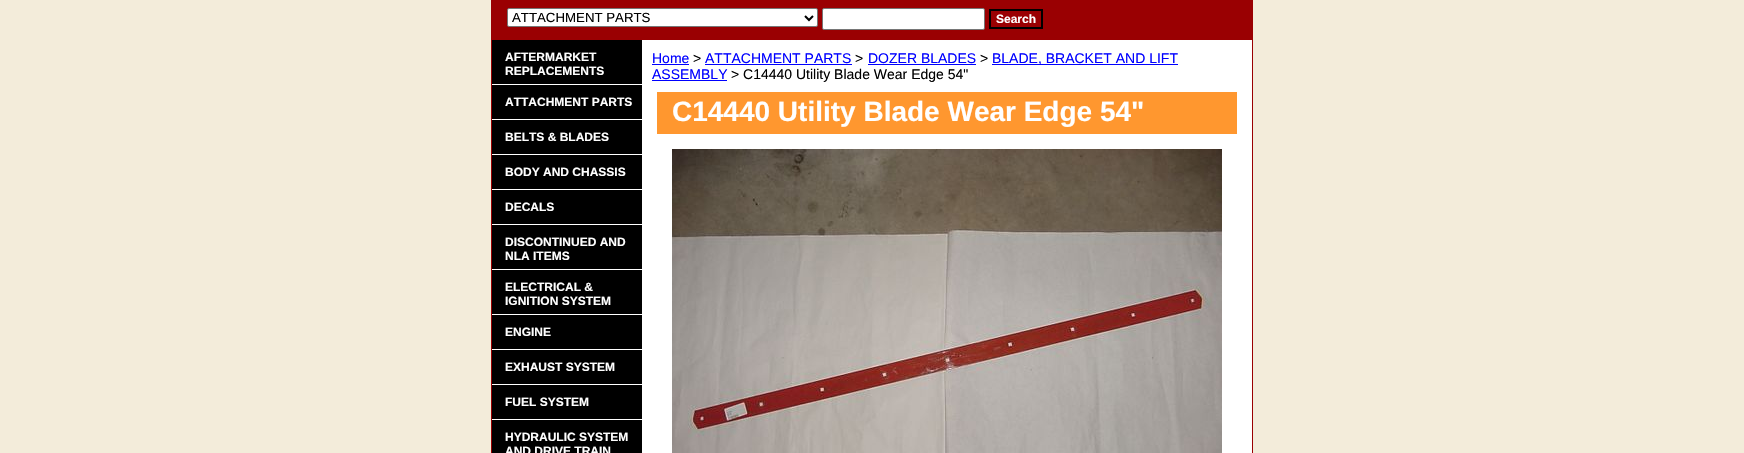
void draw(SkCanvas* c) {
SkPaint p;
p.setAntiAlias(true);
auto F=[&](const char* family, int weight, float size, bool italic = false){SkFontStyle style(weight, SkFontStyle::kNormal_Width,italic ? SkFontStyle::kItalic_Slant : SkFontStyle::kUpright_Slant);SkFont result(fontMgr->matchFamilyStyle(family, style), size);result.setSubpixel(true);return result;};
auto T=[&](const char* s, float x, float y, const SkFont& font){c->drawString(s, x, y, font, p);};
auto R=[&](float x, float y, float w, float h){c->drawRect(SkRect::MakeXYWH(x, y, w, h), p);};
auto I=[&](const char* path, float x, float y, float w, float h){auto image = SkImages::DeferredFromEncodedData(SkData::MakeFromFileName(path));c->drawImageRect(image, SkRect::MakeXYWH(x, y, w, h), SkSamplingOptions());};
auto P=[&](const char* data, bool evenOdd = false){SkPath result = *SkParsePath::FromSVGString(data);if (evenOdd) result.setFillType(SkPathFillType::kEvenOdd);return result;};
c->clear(0xfff3ecda);
p.setColor(0xffffffff);
R(642,40,610,413);
p.setStroke(true);
p.setStrokeWidth(1);
p.setColor(0xff9a0002);
c->drawRect(SkRect::MakeXYWH(491.5,-.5,761,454),p);
p.setStroke(false);
R(492,0,760,40);
p.setColor(0xffffffff);
c->drawRoundRect(SkRect::MakeXYWH(507.5,8.5,310,18),1.5,1.5,p);
p.setStroke(true);
p.setColor(0xff767676);
c->drawRoundRect(SkRect::MakeXYWH(507.5,8.5,310,18),1.5,1.5,p);
p.setStrokeWidth(2);
p.setColor(0xff000000);
c->drawPath(P("M805 16l4 4l4-4"),p);
auto f1 = F("Liberation Sans",400,13.25);
p.setStroke(false);
T("ATTACHMENT PARTS",512,22,f1);
p.setColor(0xffffffff);
c->drawRoundRect(SkRect::MakeXYWH(822.5,8.5,162,21),1.5,1.5,p);
p.setStroke(true);
p.setStrokeWidth(1);
p.setColor(0xff767676);
c->drawRoundRect(SkRect::MakeXYWH(822.5,8.5,162,21),1.5,1.5,p);
p.setStrokeWidth(2);
p.setColor(0xff000000);
c->drawRect(SkRect::MakeXYWH(990,10,52,18),p);
auto f2 = F("Liberation Sans",700,12);
p.setStroke(false);
p.setColor(0xffffffff);
T("Search",996,23,f2);
p.setColor(0xff000000);
R(492,40,150,413);
p.setColor(0xffffffff);
R(492,84,150,1);
T("AFTERMARKET",505,61,f2);
T("REPLACEMENTS",505,75,f2);
R(492,119,150,1);
T("ATTACHMENT PARTS",505,106,f2);
R(492,154,150,1);
T("BELTS & BLADES",505,141,f2);
R(492,189,150,1);
T("BODY AND CHASSIS",505,176,f2);
R(492,224,150,1);
T("DECALS",505,211,f2);
R(492,269,150,1);
T("DISCONTINUED AND",505,246,f2);
T("NLA ITEMS",505,260,f2);
R(492,314,150,1);
T("ELECTRICAL &",505,291,f2);
T("IGNITION SYSTEM",505,305,f2);
R(492,349,150,1);
T("ENGINE",505,336,f2);
R(492,384,150,1);
T("EXHAUST SYSTEM",505,371,f2);
R(492,419,150,1);
T("FUEL SYSTEM",505,406,f2);
T("HYDRAULIC SYSTEM",505,441,f2);
T("AND DRIVE TRAIN",505,455,f2);
auto f3 = F("Liberation Sans",400,14);
p.setColor(0xff0000ff);
T("Home",652,63,f3);
R(652,64,37,1);
p.setColor(0xff000000);
T(">",693,63,f3);
p.setColor(0xff0000ff);
T("ATTACHMENT PARTS",705,63,f3);
R(705,64,147,1);
p.setColor(0xff000000);
T(">",855,63,f3);
p.setColor(0xff0000ff);
T("DOZER BLADES",868,63,f3);
R(868,64,108,1);
p.setColor(0xff000000);
T(">",980,63,f3);
p.setColor(0xff0000ff);
R(992,64,186,1);
T("BLADE, BRACKET AND LIFT",992,63,f3);
T("ASSEMBLY",652,79,f3);
R(652,80,75,1);
p.setColor(0xff000000);
T("> C14440 Utility Blade Wear Edge 54\"",731,79,f3);
p.setColor(0xffff972f);
R(657,92,580,42);
auto f4 = F("Liberation Sans",700,28);
p.setColor(0xffffffff);
T("C14440 Utility Blade Wear Edge 54\"",672,121,f4);
I("1.png",672,149,550,304);
}
